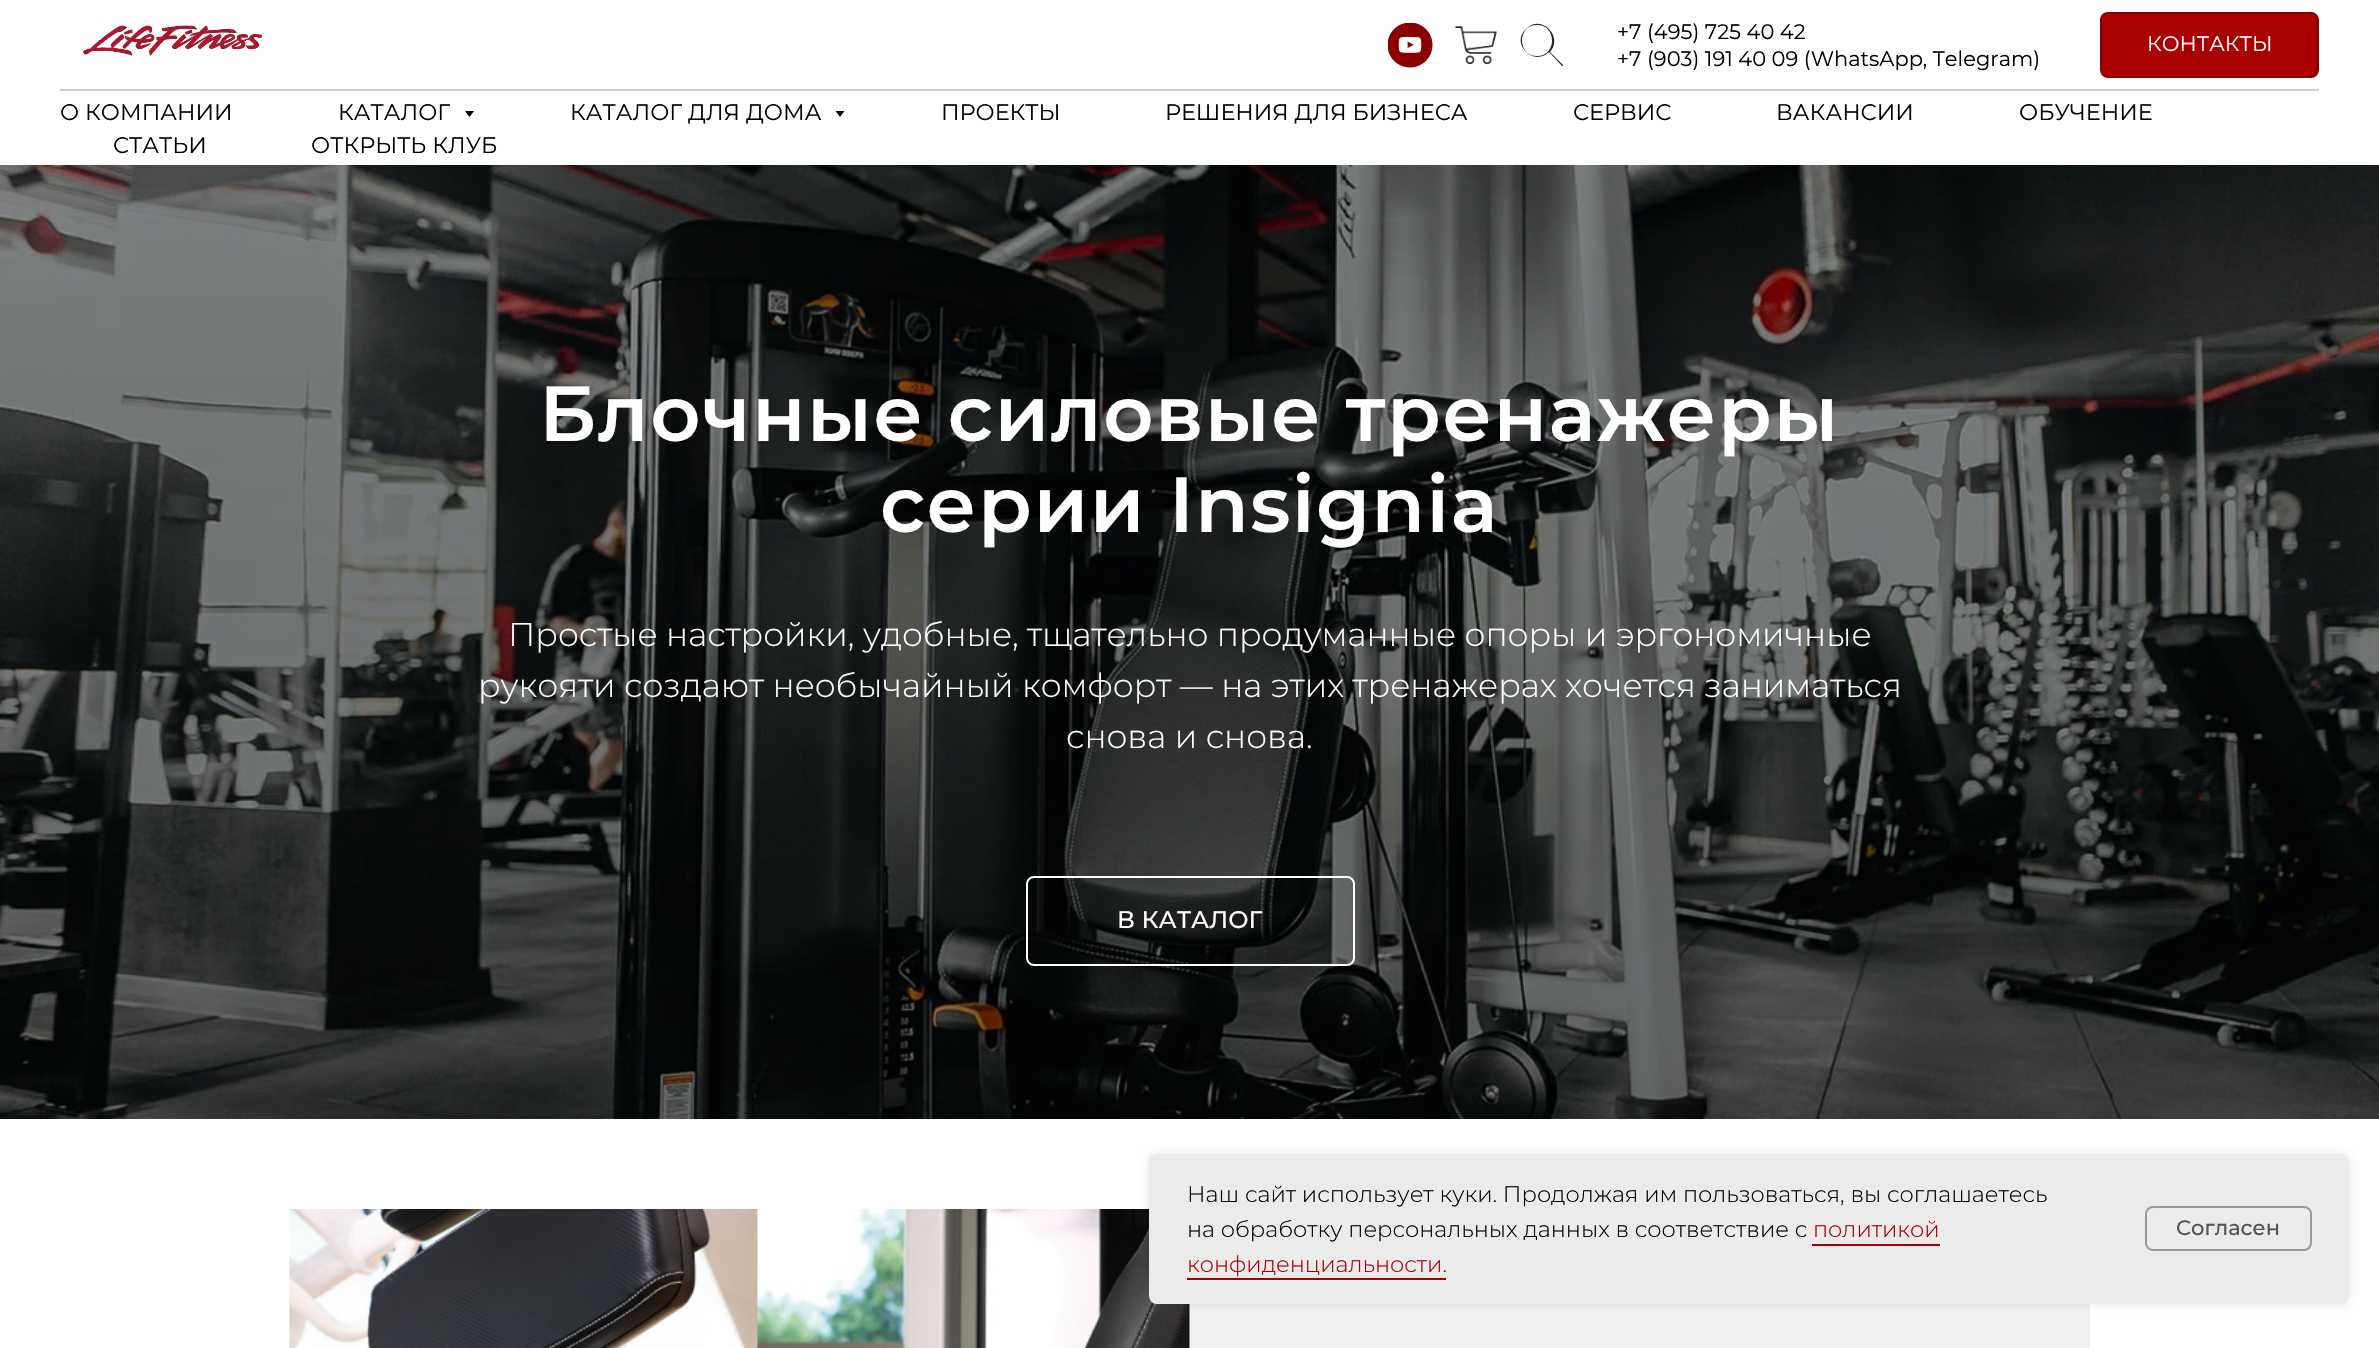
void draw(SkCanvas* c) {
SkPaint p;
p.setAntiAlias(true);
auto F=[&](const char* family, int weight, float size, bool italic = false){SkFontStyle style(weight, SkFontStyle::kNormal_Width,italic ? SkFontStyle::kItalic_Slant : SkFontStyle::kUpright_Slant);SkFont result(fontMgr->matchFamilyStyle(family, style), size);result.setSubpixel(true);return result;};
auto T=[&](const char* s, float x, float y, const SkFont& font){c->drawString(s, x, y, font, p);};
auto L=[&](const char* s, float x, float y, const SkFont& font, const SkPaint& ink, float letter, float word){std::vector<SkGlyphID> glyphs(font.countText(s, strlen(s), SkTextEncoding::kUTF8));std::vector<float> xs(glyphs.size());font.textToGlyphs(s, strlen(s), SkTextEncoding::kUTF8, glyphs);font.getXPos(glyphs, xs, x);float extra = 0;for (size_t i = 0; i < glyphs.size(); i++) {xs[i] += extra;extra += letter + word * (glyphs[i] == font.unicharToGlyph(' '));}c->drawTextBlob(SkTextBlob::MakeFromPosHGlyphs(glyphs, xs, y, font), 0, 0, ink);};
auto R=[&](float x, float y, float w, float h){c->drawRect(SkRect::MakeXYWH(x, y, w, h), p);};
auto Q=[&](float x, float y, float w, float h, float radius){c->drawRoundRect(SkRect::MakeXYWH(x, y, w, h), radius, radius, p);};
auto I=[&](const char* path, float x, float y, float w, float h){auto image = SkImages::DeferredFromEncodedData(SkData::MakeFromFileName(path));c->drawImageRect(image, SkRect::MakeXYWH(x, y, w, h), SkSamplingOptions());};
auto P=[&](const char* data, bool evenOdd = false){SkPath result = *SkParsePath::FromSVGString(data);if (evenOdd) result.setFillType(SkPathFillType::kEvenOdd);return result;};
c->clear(0xffffffff);
I("1.png",82,25,180,31);
I("2.png",1388,23,45,45);
I("3.png",1455,26,42,39);
p.setColor(0xff252729);
c->drawPath(P("M1563 65l-13-13c14-15-9-39-24-23c-16 15 8 38 23 23l13 14c1 0 1 0 1-1zm-26-9c-20 0-20-31 0-31c20 0 20 31 0 31z"),p);
auto f1 = F("Montserrat",400,21);
p.setColor(0xff000000);
T("+7 (495) 725 40 42",1617,39,f1);
T("+7 (903) 191 40 09 (WhatsApp, Telegram)",1617,66,f1);
p.setColor(0xffa80000);
c->drawRoundRect(SkRect::MakeXYWH(2101,13,217,64),7,7,p);
p.setStroke(true);
p.setStrokeWidth(2);
p.setColor(0xff8a0000);
c->drawRoundRect(SkRect::MakeXYWH(2101,13,217,64),7,7,p);
p.setStroke(false);
p.setColor(0xffffffff);
T("КОНТАКТЫ",2147,51,f1);
p.setColor(0xffcccccc);
R(60,89,2259,2);
auto f2 = F("Montserrat",400,22.5);
p.setColor(0xff000000);
T("О КОМПАНИИ",60,120,f2);
T("КАТАЛОГ",338,120,f2);
c->drawPath(P("M465 111h9l-4.5 6z"),p);
T("КАТАЛОГ ДЛЯ ДОМА",570,120,f2);
c->drawPath(P("M835.5 111h9l-4.5 6z"),p);
T("ПРОЕКТЫ",941,120,f2);
T("РЕШЕНИЯ ДЛЯ БИЗНЕСА",1165,120,f2);
T("СЕРВИС",1573,120,f2);
T("ВАКАНСИИ",1776,120,f2);
T("ОБУЧЕНИЕ",2019,120,f2);
T("СТАТЬИ",113,153,f2);
T("ОТКРЫТЬ КЛУБ",311,153,f2);
I("4.png",0,165,2379,954);
auto f3 = F("Montserrat",600,78);
p.setColor(0xffffffff);
L("Блочные силовые тренажеры",539,441,f3,p,1.5,0);
L("серии Insignia",880,532,f3,p,1.5,0);
auto f4 = F("Montserrat",300,33);
T("Простые настройки, удобные, тщательно продуманные опоры и эргономичные",508,646,f4);
T("рукояти создают необычайный комфорт — на этих тренажерах хочется заниматься",478,697,f4);
T("снова и снова.",1066,748,f4);
p.setStroke(true);
c->drawRoundRect(SkRect::MakeXYWH(1027,877,327,88),7,7,p);
auto f5 = F("Montserrat",500,24);
p.setStroke(false);
T("В КАТАЛОГ",1117,928,f5);
I("5.png",289,1209,901,139);
p.setColor(0xfff0f0f0);
R(1190,1304,900,44);
p.setColor(0x1a000000);
p.setMaskFilter(SkMaskFilter::MakeBlur(kNormal_SkBlurStyle, 4));
c->drawRoundRect(SkRect::MakeXYWH(1149,1154,1200,150),8,8,p);
p.setMaskFilter(nullptr);
p.setColor(0xffebebeb);
Q(1149,1154,1200,150,8);
auto f6 = F("Montserrat",300,22.5);
p.setColor(0xff000000);
T("Наш сайт использует куки. Продолжая им пользоваться, вы соглашаетесь",1187,1202,f6);
T("на обработку персональных данных в соответствие с",1187,1237,f6);
p.setColor(0xffa80000);
T("политикой",1813,1237,f6);
R(1812,1244,128,2);
T("конфиденциальности.",1187,1272,f6);
R(1187,1278,259,2);
p.setStroke(true);
p.setColor(0xff999999);
c->drawRoundRect(SkRect::MakeXYWH(2146,1207,165,43),7,7,p);
auto f7 = F("Montserrat",500,21);
p.setStroke(false);
p.setColor(0xff555555);
T("Согласен",2176,1235,f7);
}
